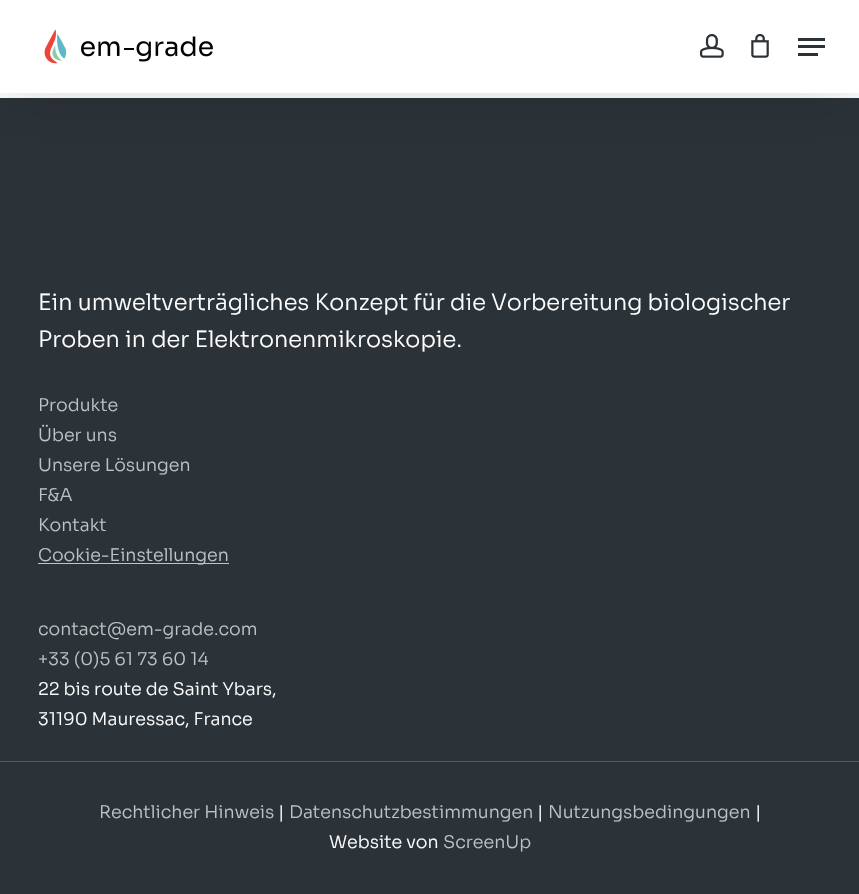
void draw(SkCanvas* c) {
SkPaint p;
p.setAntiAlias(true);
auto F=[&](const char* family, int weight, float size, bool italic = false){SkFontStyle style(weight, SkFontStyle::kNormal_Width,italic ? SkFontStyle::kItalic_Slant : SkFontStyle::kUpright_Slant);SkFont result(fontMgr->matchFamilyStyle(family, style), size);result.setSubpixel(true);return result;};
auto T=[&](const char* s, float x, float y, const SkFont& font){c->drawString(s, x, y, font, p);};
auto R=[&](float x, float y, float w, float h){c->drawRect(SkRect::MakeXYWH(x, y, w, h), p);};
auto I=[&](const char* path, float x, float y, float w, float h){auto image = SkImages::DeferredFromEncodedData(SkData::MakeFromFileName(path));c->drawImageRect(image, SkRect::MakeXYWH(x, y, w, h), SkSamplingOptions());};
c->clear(0xffffffff);
p.setColor(0xff2c3338);
R(0,98,859,796);
p.setColor(0x26000000);
p.setMaskFilter(SkMaskFilter::MakeBlur(kNormal_SkBlurStyle, 28));
c->drawRect(SkRect::MakeXYWH(0,4,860,92),p);
p.setMaskFilter(nullptr);
p.setColor(0xffffffff);
R(0,0,859,93);
I("1.png",44,29,169,35);
I("2.png",700,34,24,24);
I("3.png",751,34,18,24);
p.setColor(0xff2c3338);
R(798,38,27,3);
R(798,53,20,3);
R(798,45,27,3);
auto f1 = F("Sora",300,22.5);
p.setColor(0xffffffff);
T("Ein umweltverträgliches Konzept für die Vorbereitung biologischer",38,310,f1);
T("Proben in der Elektronenmikroskopie.",38,347,f1);
auto f2 = F("Sora",300,17.5);
p.setColor(0xffc0c2c3);
T("Produkte",38,411,f2);
T("Über uns",38,441,f2);
T("Unsere Lösungen",38,471,f2);
T("F&A",38,501,f2);
T("Kontakt",38,531,f2);
R(38,563,191,1);
T("Cookie-Einstellungen",38,561,f2);
T("contact@em-grade.com",38,635,f2);
T("+33 (0)5 61 73 60 14",38,665,f2);
p.setColor(0xffffffff);
T("22 bis route de Saint Ybars,",38,695,f2);
T("31190 Mauressac, France",38,725,f2);
p.setColor(0xff565c60);
R(0,761,859,1);
p.setColor(0xffc0c2c3);
T("Rechtlicher Hinweis",99,818,f2);
p.setColor(0xffffffff);
T("|",278,818,f2);
p.setColor(0xffc0c2c3);
T("Datenschutzbestimmungen",289,818,f2);
p.setColor(0xffffffff);
T("|",537,818,f2);
p.setColor(0xffc0c2c3);
T("Nutzungsbedingungen",548,818,f2);
p.setColor(0xffffffff);
T("|",755,818,f2);
T("Website von",329,848,f2);
p.setColor(0xffc0c2c3);
T("ScreenUp",443,848,f2);
}
